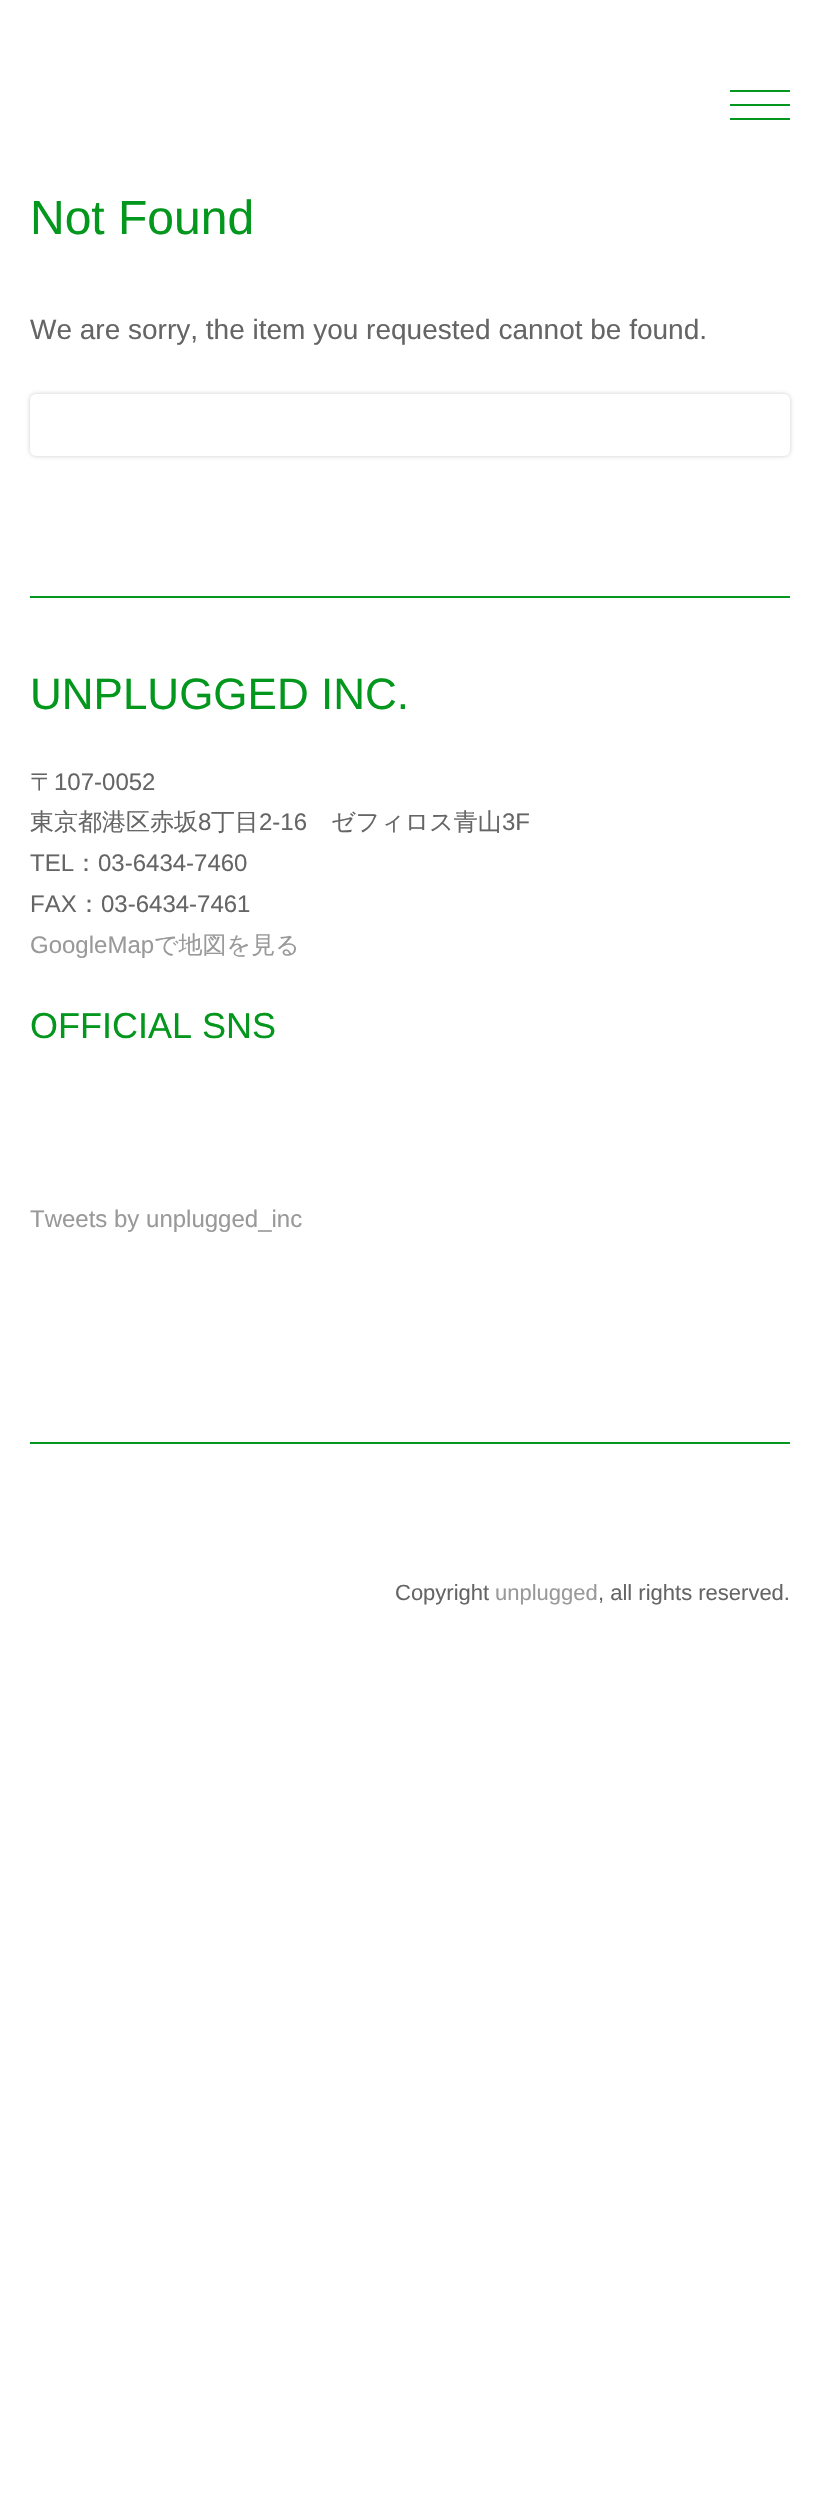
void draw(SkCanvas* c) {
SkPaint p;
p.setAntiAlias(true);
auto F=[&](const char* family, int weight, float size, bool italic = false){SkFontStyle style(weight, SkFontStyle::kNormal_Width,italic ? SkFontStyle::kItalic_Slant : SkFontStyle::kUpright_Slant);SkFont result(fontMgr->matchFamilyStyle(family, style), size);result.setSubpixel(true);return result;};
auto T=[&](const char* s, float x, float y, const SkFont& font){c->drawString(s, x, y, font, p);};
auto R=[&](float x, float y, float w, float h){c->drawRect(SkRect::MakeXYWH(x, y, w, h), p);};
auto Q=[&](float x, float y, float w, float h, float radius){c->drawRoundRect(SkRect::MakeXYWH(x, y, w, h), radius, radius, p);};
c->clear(0xffffffff);
p.setColor(0xff03971d);
R(730,90,60,2);
R(730,104,60,2);
R(730,118,60,2);
auto f1 = F("Liberation Sans",400,48);
T("Not Found",30,234,f1);
auto f2 = F("Liberation Sans",400,28);
p.setColor(0xff656565);
T("We are sorry, the item you requested cannot be found.",30,339,f2);
p.setColor(0xffcccccc);
p.setMaskFilter(SkMaskFilter::MakeBlur(kNormal_SkBlurStyle, 2));
c->drawRoundRect(SkRect::MakeXYWH(30,394,760,62),6,6,p);
p.setMaskFilter(nullptr);
p.setColor(0xffffffff);
Q(30,394,760,62,6);
p.setColor(0xff03971d);
R(30,596,760,2);
R(30,1442,760,2);
auto f3 = F("Liberation Sans",400,44);
T("UNPLUGGED INC.",30,709,f3);
auto f4 = F("WenQuanYi Zen Hei",500,24);
p.setColor(0xff656565);
T("〒",30,790,f4);
auto f5 = F("Liberation Sans",400,24);
T("107-0052",54,790,f5);
T("東京都港区赤坂",30,830,f4);
T("8",198,830,f5);
T("丁目",211,830,f4);
T("2-16",259,830,f5);
T("ゼフィロス青山",331,830,f4);
T("3F",502,830,f5);
T("TEL",30,871,f5);
T("：",74,871,f4);
T("03-6434-7460",98,871,f5);
T("FAX",30,912,f5);
T("：",77,912,f4);
T("03-6434-7461",101,912,f5);
p.setColor(0xff999999);
T("GoogleMap",30,953,f5);
T("で地図を見る",154,953,f4);
auto f6 = F("Liberation Sans",400,36);
p.setColor(0xff03971d);
T("OFFICIAL SNS",30,1038,f6);
p.setColor(0xff999999);
T("Tweets by unplugged_inc",30,1227,f5);
auto f7 = F("Liberation Sans",400,22);
p.setColor(0xff656565);
T("Copyright",395,1600,f7);
p.setColor(0xff999999);
T("unplugged",495,1600,f7);
p.setColor(0xff656565);
T(", all rights reserved.",598,1600,f7);
}
